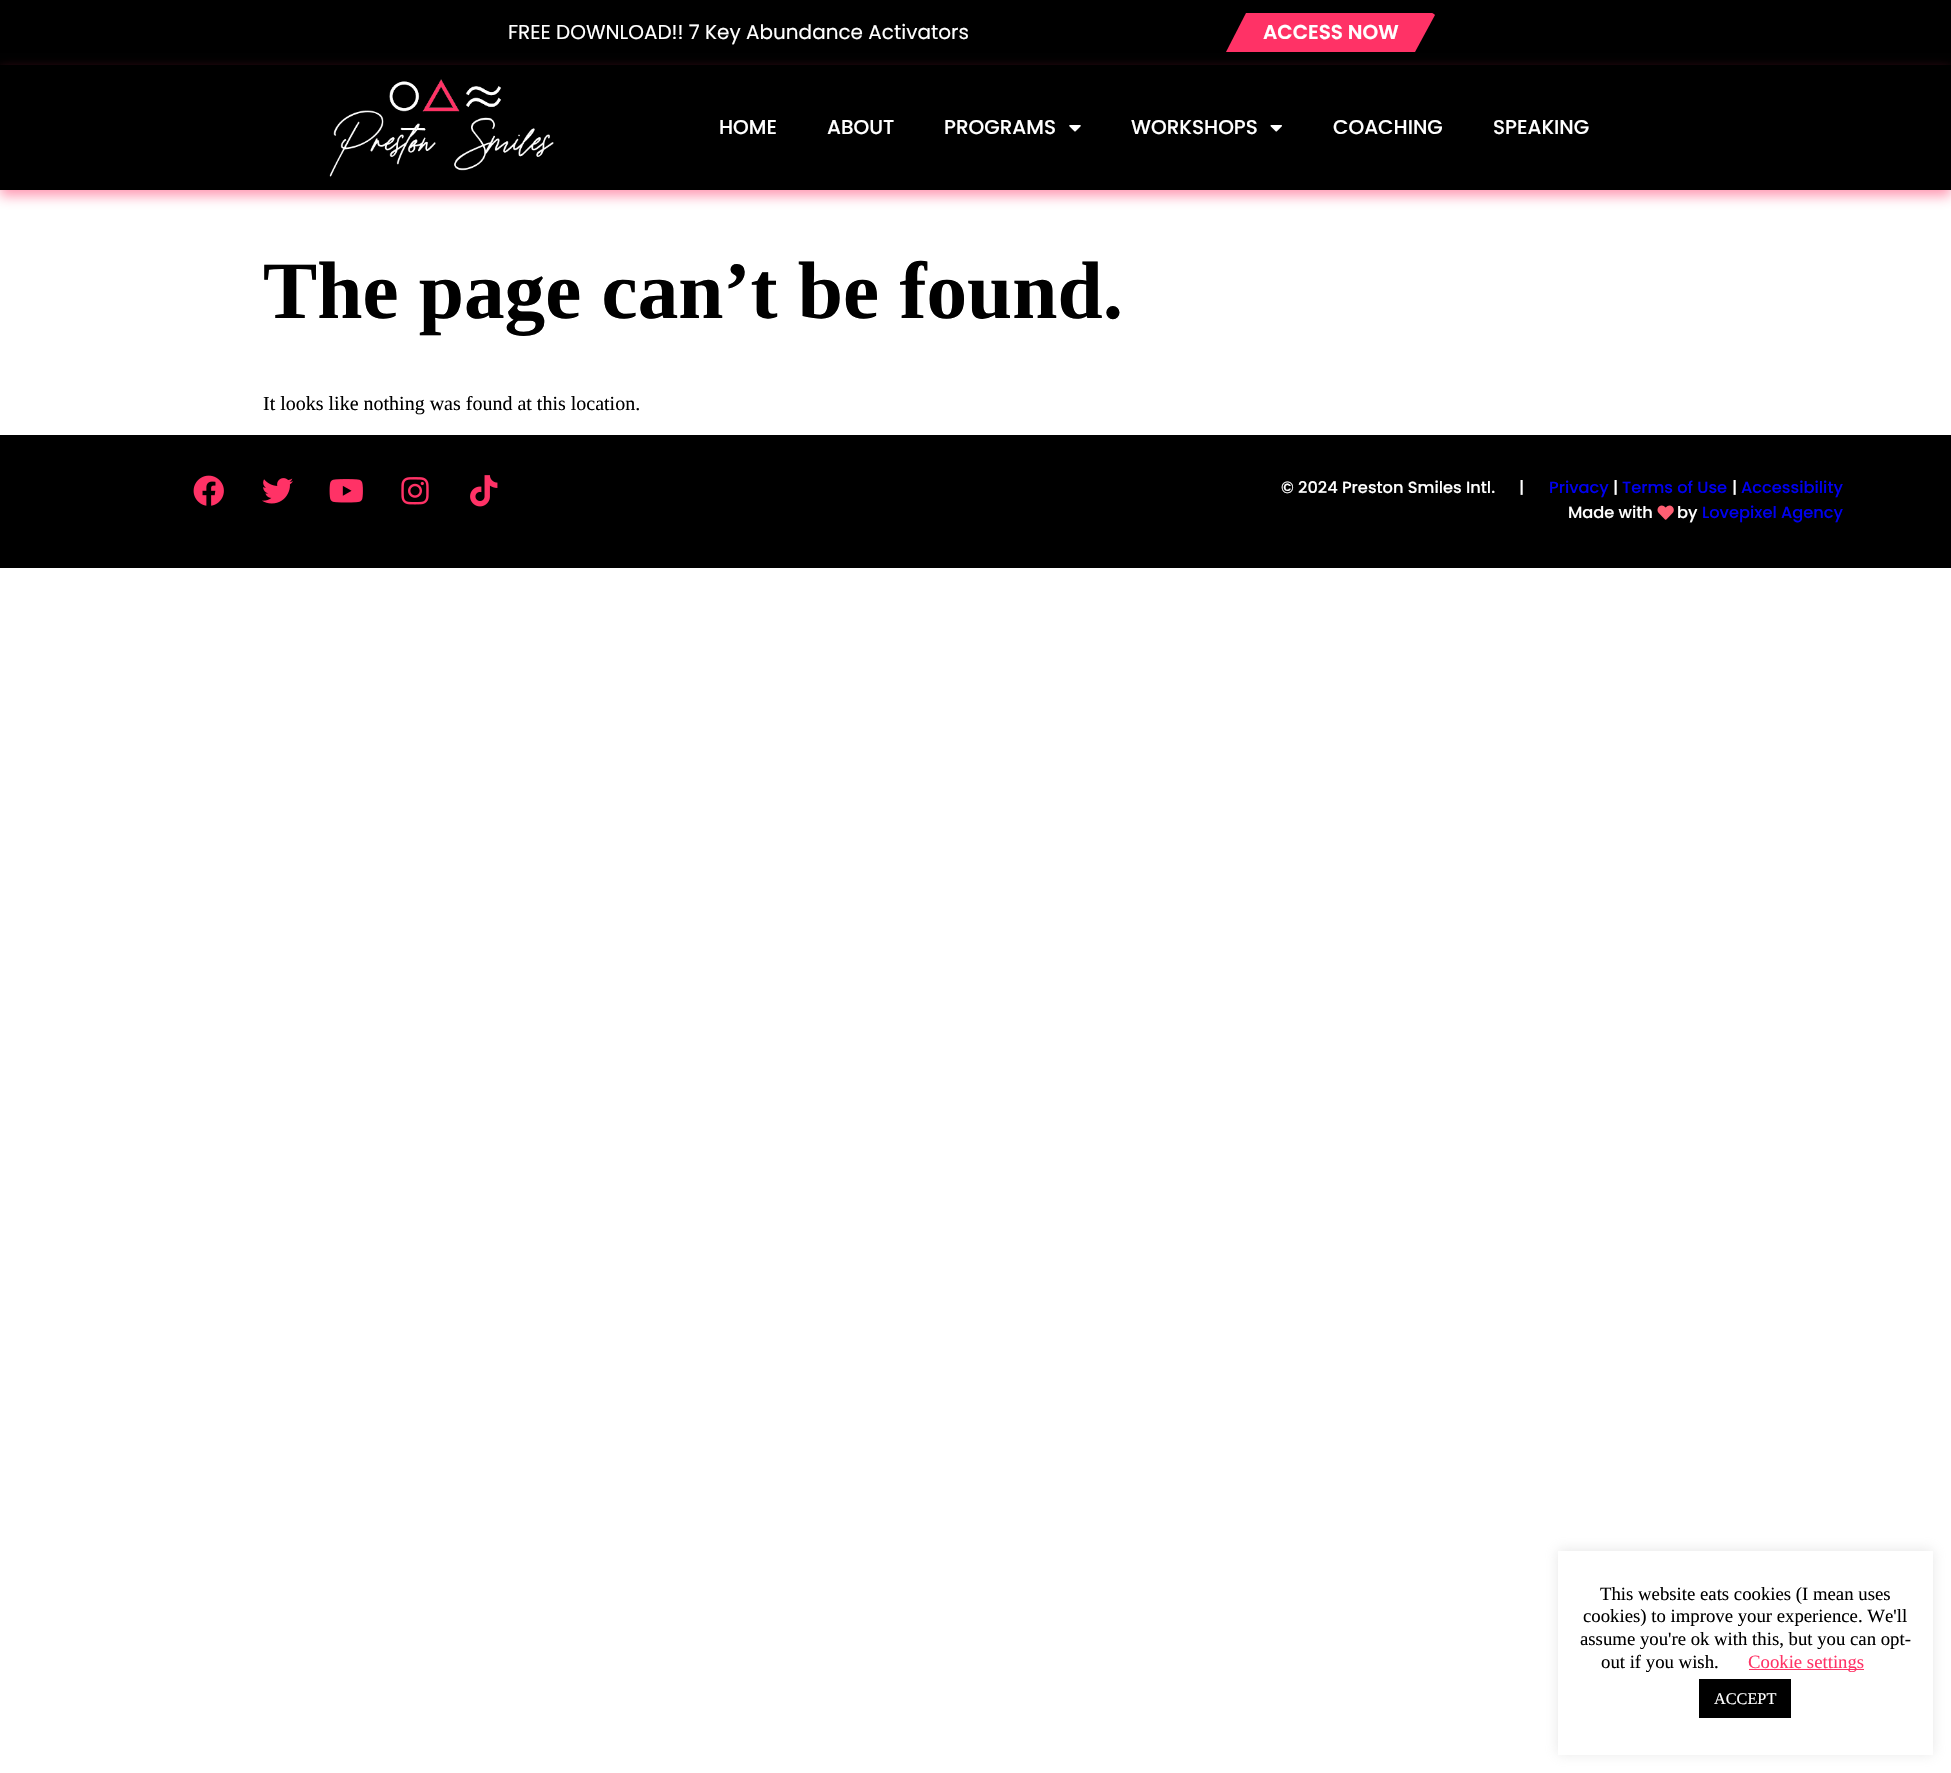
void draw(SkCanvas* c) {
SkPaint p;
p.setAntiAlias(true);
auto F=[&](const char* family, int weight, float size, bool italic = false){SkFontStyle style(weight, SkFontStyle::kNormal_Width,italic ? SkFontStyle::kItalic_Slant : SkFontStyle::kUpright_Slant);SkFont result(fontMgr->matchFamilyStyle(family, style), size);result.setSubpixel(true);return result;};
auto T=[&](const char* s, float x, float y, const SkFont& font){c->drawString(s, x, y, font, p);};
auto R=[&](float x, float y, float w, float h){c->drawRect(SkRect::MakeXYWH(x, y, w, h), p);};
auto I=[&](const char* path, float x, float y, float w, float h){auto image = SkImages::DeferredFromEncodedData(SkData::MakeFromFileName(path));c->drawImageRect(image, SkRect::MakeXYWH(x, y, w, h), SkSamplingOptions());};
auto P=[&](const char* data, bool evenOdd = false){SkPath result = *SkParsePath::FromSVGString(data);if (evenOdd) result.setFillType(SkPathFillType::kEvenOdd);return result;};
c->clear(0xffffffff);
p.setColor(0xff000000);
R(0,0,1951,65);
auto f1 = F("Poppins",400,20);
p.setColor(0xffffffff);
T("FREE DOWNLOAD!! 7 Key Abundance Activators",508,39,f1);
p.setColor(0xffff3266);
c->drawPath(P("M1226 52l20-39h186c1 0 2 1 3 2l-20 37h-188z"),p);
auto f2 = F("Poppins",600,20);
p.setColor(0xffffffff);
T("ACCESS NOW",1263,39,f2);
p.setColor(0x80ff3266);
p.setMaskFilter(SkMaskFilter::MakeBlur(kNormal_SkBlurStyle, 6));
c->drawRect(SkRect::MakeXYWH(0,71,1951,125),p);
p.setMaskFilter(nullptr);
p.setColor(0xff000000);
R(0,65,1951,125);
I("1.png",329,79,225,98);
auto f3 = F("Poppins",500,20);
p.setColor(0xffffffff);
T("HOME",719,134,f3);
T("ABOUT",827,134,f3);
T("PROGRAMS",944,134,f3);
I("2.png",1069,125,12,7);
T("WORKSHOPS",1131,134,f3);
I("3.png",1270,125,12,7);
T("COACHING",1333,134,f3);
T("SPEAKING",1493,134,f3);
auto f4 = F("Liberation Serif",700,81.25);
p.setColor(0xff000000);
T("The page can’t be found.",263,318,f4);
auto f5 = F("Liberation Serif",400,20);
T("It looks like nothing was found at this location.",263,410,f5);
R(0,435,1951,133);
I("4.png",193,475,31,31);
I("5.png",262,478,31,26);
I("6.png",329,479,34,24);
I("7.png",401,477,28,28);
I("8.png",470,475,28,32);
auto f6 = F("Poppins",500,16.25);
p.setColor(0xffffffff);
T("© 2024 Preston Smiles Intl.",1281,493,f6);
T("|",1519,493,f6);
p.setColor(0xff0000ee);
T("Privacy",1549,493,f6);
p.setColor(0xffffffff);
T("|",1613,493,f6);
p.setColor(0xff0000ee);
T("Terms of Use",1622,493,f6);
p.setColor(0xffffffff);
T("|",1732,493,f6);
p.setColor(0xff0000ee);
T("Accessibility",1741,493,f6);
p.setColor(0xffffffff);
T("Made with",1568,518,f6);
I("9.png",1657,505,17,15);
T("by",1677,518,f6);
p.setColor(0xff0000ee);
T("Lovepixel Agency",1702,518,f6);
p.setColor(0x4dacabab);
p.setMaskFilter(SkMaskFilter::MakeBlur(kNormal_SkBlurStyle, 6));
c->drawRect(SkRect::MakeXYWH(1558,1550,375,204),p);
p.setMaskFilter(nullptr);
p.setColor(0xffffffff);
R(1558,1551,375,204);
auto f7 = F("Liberation Serif",400,18.75);
p.setColor(0xff000000);
T("This website eats cookies (I mean uses",1600,1600,f7);
T("cookies) to improve your experience. We'll",1583,1622,f7);
T("assume you're ok with this, but you can opt-",1580,1645,f7);
T("out if you wish.",1601,1668,f7);
p.setColor(0xffff3366);
R(1749,1669,115,1);
T("Cookie settings",1748,1668,f7);
p.setColor(0xff000000);
R(1699,1679,92,39);
auto f8 = F("Liberation Serif",400,16.25);
p.setColor(0xffffffff);
T("ACCEPT",1714,1704,f8);
}
